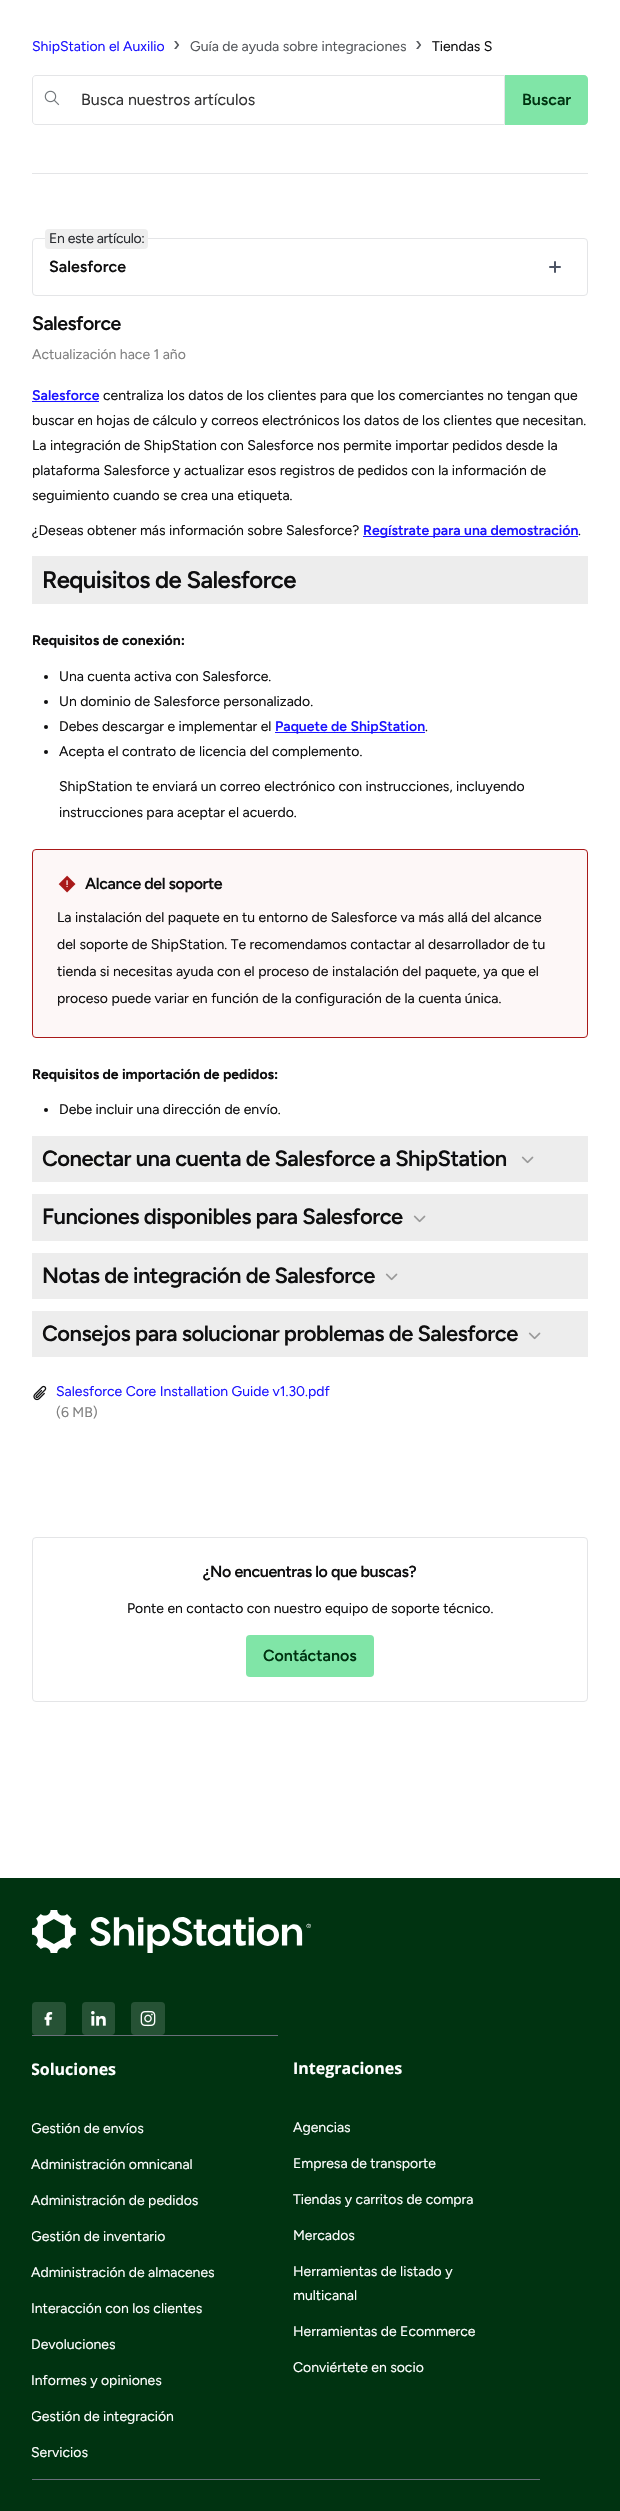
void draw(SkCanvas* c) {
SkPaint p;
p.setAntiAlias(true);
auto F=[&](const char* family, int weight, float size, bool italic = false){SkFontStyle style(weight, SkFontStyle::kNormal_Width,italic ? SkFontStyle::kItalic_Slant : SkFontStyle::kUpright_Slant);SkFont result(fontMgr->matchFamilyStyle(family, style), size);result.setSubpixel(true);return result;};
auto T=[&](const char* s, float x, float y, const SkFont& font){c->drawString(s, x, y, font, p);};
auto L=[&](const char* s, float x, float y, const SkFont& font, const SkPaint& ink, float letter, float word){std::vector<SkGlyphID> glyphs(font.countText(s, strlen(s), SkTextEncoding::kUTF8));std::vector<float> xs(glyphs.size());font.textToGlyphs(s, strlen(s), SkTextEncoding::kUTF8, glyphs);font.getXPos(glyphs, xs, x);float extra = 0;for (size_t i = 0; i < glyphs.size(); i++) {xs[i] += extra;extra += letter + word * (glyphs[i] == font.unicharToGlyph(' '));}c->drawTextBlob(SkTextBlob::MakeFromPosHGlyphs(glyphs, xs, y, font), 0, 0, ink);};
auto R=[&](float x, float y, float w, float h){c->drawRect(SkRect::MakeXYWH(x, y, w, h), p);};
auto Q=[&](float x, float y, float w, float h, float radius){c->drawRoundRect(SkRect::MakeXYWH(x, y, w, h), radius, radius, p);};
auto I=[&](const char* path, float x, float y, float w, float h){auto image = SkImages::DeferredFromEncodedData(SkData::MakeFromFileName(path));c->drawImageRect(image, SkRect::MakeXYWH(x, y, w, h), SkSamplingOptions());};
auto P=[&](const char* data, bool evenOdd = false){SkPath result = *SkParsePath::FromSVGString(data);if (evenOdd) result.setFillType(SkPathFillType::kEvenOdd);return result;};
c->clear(0xffffffff);
p.setColor(0xffe4e5e7);
R(32,173,556,1);
auto f1 = F("Figtree",400,14);
p.setColor(0xff1c14ff);
T("ShipStation el Auxilio",32,51,f1);
auto f2 = F("Figtree",400,20);
p.setColor(0xff56595d);
T("›",173,51,f2);
T("Guía de ayuda sobre integraciones",190,51,f1);
T("›",415,51,f2);
p.setColor(0xff0f0f10);
T("Tiendas S",432,51,f1);
p.setStroke(true);
p.setStrokeWidth(1);
p.setColor(0xffe4e5e7);
c->drawPath(P("M36 75.5h468.5v49h-468.5c-2 0-3.5-1.5-3.5-3.5v-42c0-2 1.5-3.5 3.5-3.5z"),p);
I("1.png",44,90,16,16);
auto f3 = F("Figtree",400,16);
p.setStroke(false);
p.setColor(0xff333334);
T("Busca nuestros artículos",81,105,f3);
p.setColor(0xff80e5a7);
c->drawPath(P("M505 75h79c2 0 4 2 4 4v42c0 2-2 4-4 4h-79z"),p);
auto f4 = F("Figtree",600,16);
p.setColor(0xff003311);
T("Buscar",522,105,f4);
p.setStroke(true);
p.setColor(0xffe4e5e7);
c->drawRoundRect(SkRect::MakeXYWH(32.5,238.5,555,57),3.5,3.5,p);
p.setStroke(false);
p.setColor(0xffeeeeee);
Q(45,229,103,20,4);
p.setColor(0xff2a2c31);
L("En este artículo:",49,243,f1,p,-.3,0);
p.setColor(0xff0f0f10);
T("Salesforce",49,272,f4);
p.setColor(0xff4e5565);
Q(554,261,2,12,1);
Q(549,266,12,2,1);
auto f5 = F("Figtree",600,19.5);
p.setColor(0xff0f0f10);
L("Salesforce",32,330,f5,p,-.5,0);
p.setColor(0xff808080);
T("Actualización hace 1 año",32,359,f1);
auto f6 = F("Figtree",600,14);
p.setColor(0xff1c14ff);
T("Salesforce",32,400,f6);
R(32,401,67,1);
p.setColor(0xff0f0f10);
T("centraliza los datos de los clientes para que los comerciantes no tengan que",103,400,f1);
T("buscar en hojas de cálculo y correos electrónicos los datos de los clientes que necesitan.",32,425,f1);
T("La integración de ShipStation con Salesforce nos permite importar pedidos desde la",32,450,f1);
T("plataforma Salesforce y actualizar esos registros de pedidos con la información de",32,475,f1);
T("seguimiento cuando se crea una etiqueta.",32,500,f1);
T("¿Deseas obtener más información sobre Salesforce?",32,535,f1);
p.setColor(0xff1c14ff);
R(363,536,215,1);
T("Regístrate para una demostración",363,535,f6);
p.setColor(0xff0f0f10);
T(".",578,535,f1);
p.setColor(0xffededed);
R(32,556,556,48);
auto f7 = F("Figtree",600,24);
p.setColor(0xff0f0f10);
L("Requisitos de Salesforce",42,588,f7,p,-.6,0);
auto f8 = F("Figtree",700,14);
T("Requisitos de conexión:",32,645,f8);
c->drawCircle(46,677,2,p);
T("Una cuenta activa con Salesforce.",59,681,f1);
c->drawCircle(46,702,2,p);
T("Un dominio de Salesforce personalizado.",59,706,f1);
c->drawCircle(46,727,2,p);
T("Debes descargar e implementar el",59,731,f1);
p.setColor(0xff1c14ff);
R(275,732,150,1);
T("Paquete de ShipStation",275,731,f6);
p.setColor(0xff0f0f10);
T(".",425,731,f1);
c->drawCircle(46,752,2,p);
T("Acepta el contrato de licencia del complemento.",59,756,f1);
T("ShipStation te enviará un correo electrónico con instrucciones, incluyendo",59,791,f1);
T("instrucciones para aceptar el acuerdo.",59,817,f1);
p.setColor(0xfffdf7f7);
c->drawRoundRect(SkRect::MakeXYWH(32.5,849.5,555,188),3.5,3.5,p);
p.setStroke(true);
p.setColor(0xffa91919);
c->drawRoundRect(SkRect::MakeXYWH(32.5,849.5,555,188),3.5,3.5,p);
I("2.png",58,875,18,18);
p.setStroke(false);
p.setColor(0xff0f0f10);
L("Alcance del soporte",85,889,f4,p,-.4,0);
T("La instalación del paquete en tu entorno de Salesforce va más allá del alcance",57,922,f1);
T("del soporte de ShipStation. Te recomendamos contactar al desarrollador de tu",57,949,f1);
T("tienda si necesitas ayuda con el proceso de instalación del paquete, ya que el",57,976,f1);
T("proceso puede variar en función de la configuración de la cuenta única.",57,1003,f1);
T("Requisitos de importación de pedidos:",32,1079,f8);
c->drawCircle(46,1110,2,p);
T("Debe incluir una dirección de envío.",59,1114,f1);
p.setColor(0xffededed);
R(32,1136,556,46);
auto f9 = F("Figtree",600,22);
p.setColor(0xff0f0f10);
L("Conectar una cuenta de Salesforce a ShipStation",42,1166,f9,p,-.55,0);
I("3.png",521,1156,13,8);
p.setColor(0xffededed);
R(32,1194,556,47);
p.setColor(0xff0f0f10);
L("Funciones disponibles para Salesforce",42,1224,f9,p,-.55,0);
I("3.png",413,1215,13,8);
p.setColor(0xffededed);
R(32,1253,556,46);
p.setColor(0xff0f0f10);
L("Notas de integración de Salesforce",42,1283,f9,p,-.55,0);
I("3.png",385,1273,13,8);
p.setColor(0xffededed);
R(32,1311,556,46);
p.setColor(0xff0f0f10);
L("Consejos para solucionar problemas de Salesforce",42,1341,f9,p,-.55,0);
I("3.png",528,1332,13,8);
I("4.png",33,1385,14,16);
p.setColor(0xff1c14ff);
T("Salesforce Core Installation Guide v1.30.pdf",56,1396,f1);
p.setColor(0xff808080);
T("(6 MB)",56,1417,f1);
p.setStroke(true);
p.setColor(0xffe4e5e7);
c->drawRoundRect(SkRect::MakeXYWH(32.5,1537.5,555,164),3.5,3.5,p);
p.setStroke(false);
p.setColor(0xff0f0f10);
L("¿No encuentras lo que buscas?",203,1577,f4,p,-.4,0);
T("Ponte en contacto con nuestro equipo de soporte técnico.",127,1613,f1);
p.setColor(0xff80e5a7);
Q(246,1635,128,42,4);
p.setColor(0xff003311);
T("Contáctanos",263,1661,f4);
R(0,1878,620,633);
I("5.png",32,1910,279,43);
p.setColor(0xff265235);
Q(32,2002,34,33,4);
I("6.png",44,2012,9,14);
Q(82,2002,33,33,4);
I("7.png",91,2011,15,15);
Q(131,2002,34,33,4);
I("8.png",140,2010,16,17);
p.setColor(0xff696f7a);
R(32,2035,246,1);
R(32,2479,508,1);
c->save();
c->clipRect(SkRect::MakeXYWH(32,1910,556,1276));
auto f10 = F("Open Sans",700,16);
p.setColor(0xffffffff);
T("Soluciones",31,2075,f10);
T("Gestión de envíos",31,2133,f1);
c->restore();
T("Administración omnicanal",31,2169,f1);
T("Administración de pedidos",31,2205,f1);
c->save();
c->clipRect(SkRect::MakeXYWH(32,1910,556,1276));
T("Gestión de inventario",31,2241,f1);
c->restore();
T("Administración de almacenes",31,2277,f1);
T("Interacción con los clientes",31,2313,f1);
T("Devoluciones",31,2349,f1);
T("Informes y opiniones",31,2385,f1);
c->save();
c->clipRect(SkRect::MakeXYWH(32,1910,556,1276));
T("Gestión de integración",31,2421,f1);
c->restore();
T("Servicios",31,2457,f1);
T("Integraciones",293,2074,f10);
T("Agencias",293,2132,f1);
T("Empresa de transporte",293,2168,f1);
T("Tiendas y carritos de compra",293,2204,f1);
T("Mercados",293,2240,f1);
T("Herramientas de listado y",293,2276,f1);
T("multicanal",293,2300,f1);
T("Herramientas de Ecommerce",293,2336,f1);
T("Conviértete en socio",293,2372,f1);
}
